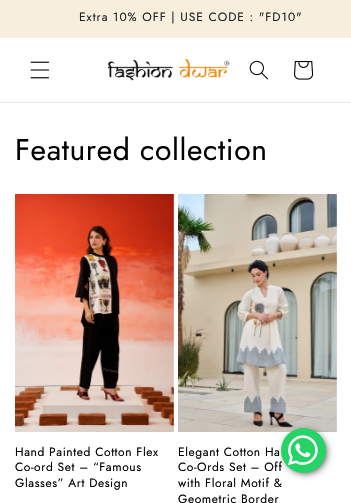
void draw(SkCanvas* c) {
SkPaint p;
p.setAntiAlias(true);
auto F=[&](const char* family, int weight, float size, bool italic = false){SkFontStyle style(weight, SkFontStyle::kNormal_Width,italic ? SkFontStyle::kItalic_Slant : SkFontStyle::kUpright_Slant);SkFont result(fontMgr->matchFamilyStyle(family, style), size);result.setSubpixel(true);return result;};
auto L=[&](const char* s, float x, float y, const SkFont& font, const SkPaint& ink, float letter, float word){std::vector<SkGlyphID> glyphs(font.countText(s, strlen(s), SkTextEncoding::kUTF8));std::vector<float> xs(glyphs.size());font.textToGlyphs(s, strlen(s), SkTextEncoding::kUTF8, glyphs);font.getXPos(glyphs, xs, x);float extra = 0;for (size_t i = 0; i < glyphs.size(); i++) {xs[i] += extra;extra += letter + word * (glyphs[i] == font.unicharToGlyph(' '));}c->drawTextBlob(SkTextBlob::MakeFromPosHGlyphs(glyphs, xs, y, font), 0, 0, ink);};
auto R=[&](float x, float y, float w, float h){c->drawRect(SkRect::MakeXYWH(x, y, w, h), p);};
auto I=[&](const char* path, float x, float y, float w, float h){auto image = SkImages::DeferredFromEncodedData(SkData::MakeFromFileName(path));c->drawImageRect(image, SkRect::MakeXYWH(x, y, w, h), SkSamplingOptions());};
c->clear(0xfff7eedd);
auto f1 = F("Jost",400,12);
p.setColor(0xff212326);
L("Extra 10% OFF | USE CODE : \"FD10\"",79,21,f1,p,1,0);
p.setColor(0xffffffff);
R(0,38,351,64);
p.setColor(0xffebebeb);
R(0,102,351,1);
I("1.png",30,61,20,18);
I("2.png",107,59,123,22);
I("3.png",249,60,19,20);
I("4.png",294,61,20,19);
p.setColor(0xffffffff);
R(0,103,351,400);
auto f2 = F("Jost",400,30);
p.setColor(0xff000000);
L("Featured collection",15,160,f2,p,.6,0);
I("5.png",15,194,159,238);
L("Hand Painted Cotton Flex",15,456,f1,p,.6,0);
L("Co-ord Set – “Famous",15,471,f1,p,.6,0);
L("Glasses” Art Design",15,487,f1,p,.6,0);
I("6.png",178,194,159,238);
L("Elegant Cotton Ha",178,456,f1,p,.6,0);
L("Co-Ords Set – Off",178,471,f1,p,.6,0);
L("with Floral Motif &",178,487,f1,p,.6,0);
L("Geometric Border",178,503,f1,p,.6,0);
p.setMaskFilter(SkMaskFilter::MakeBlur(kNormal_SkBlurStyle, 4));
c->drawRoundRect(SkRect::MakeXYWH(286,433,39,39),19.5,19.5,p);
p.setMaskFilter(nullptr);
p.setColor(0xff25d366);
c->drawCircle(303.5,450.5,22.5,p);
I("7.png",288,435,30,31);
}
